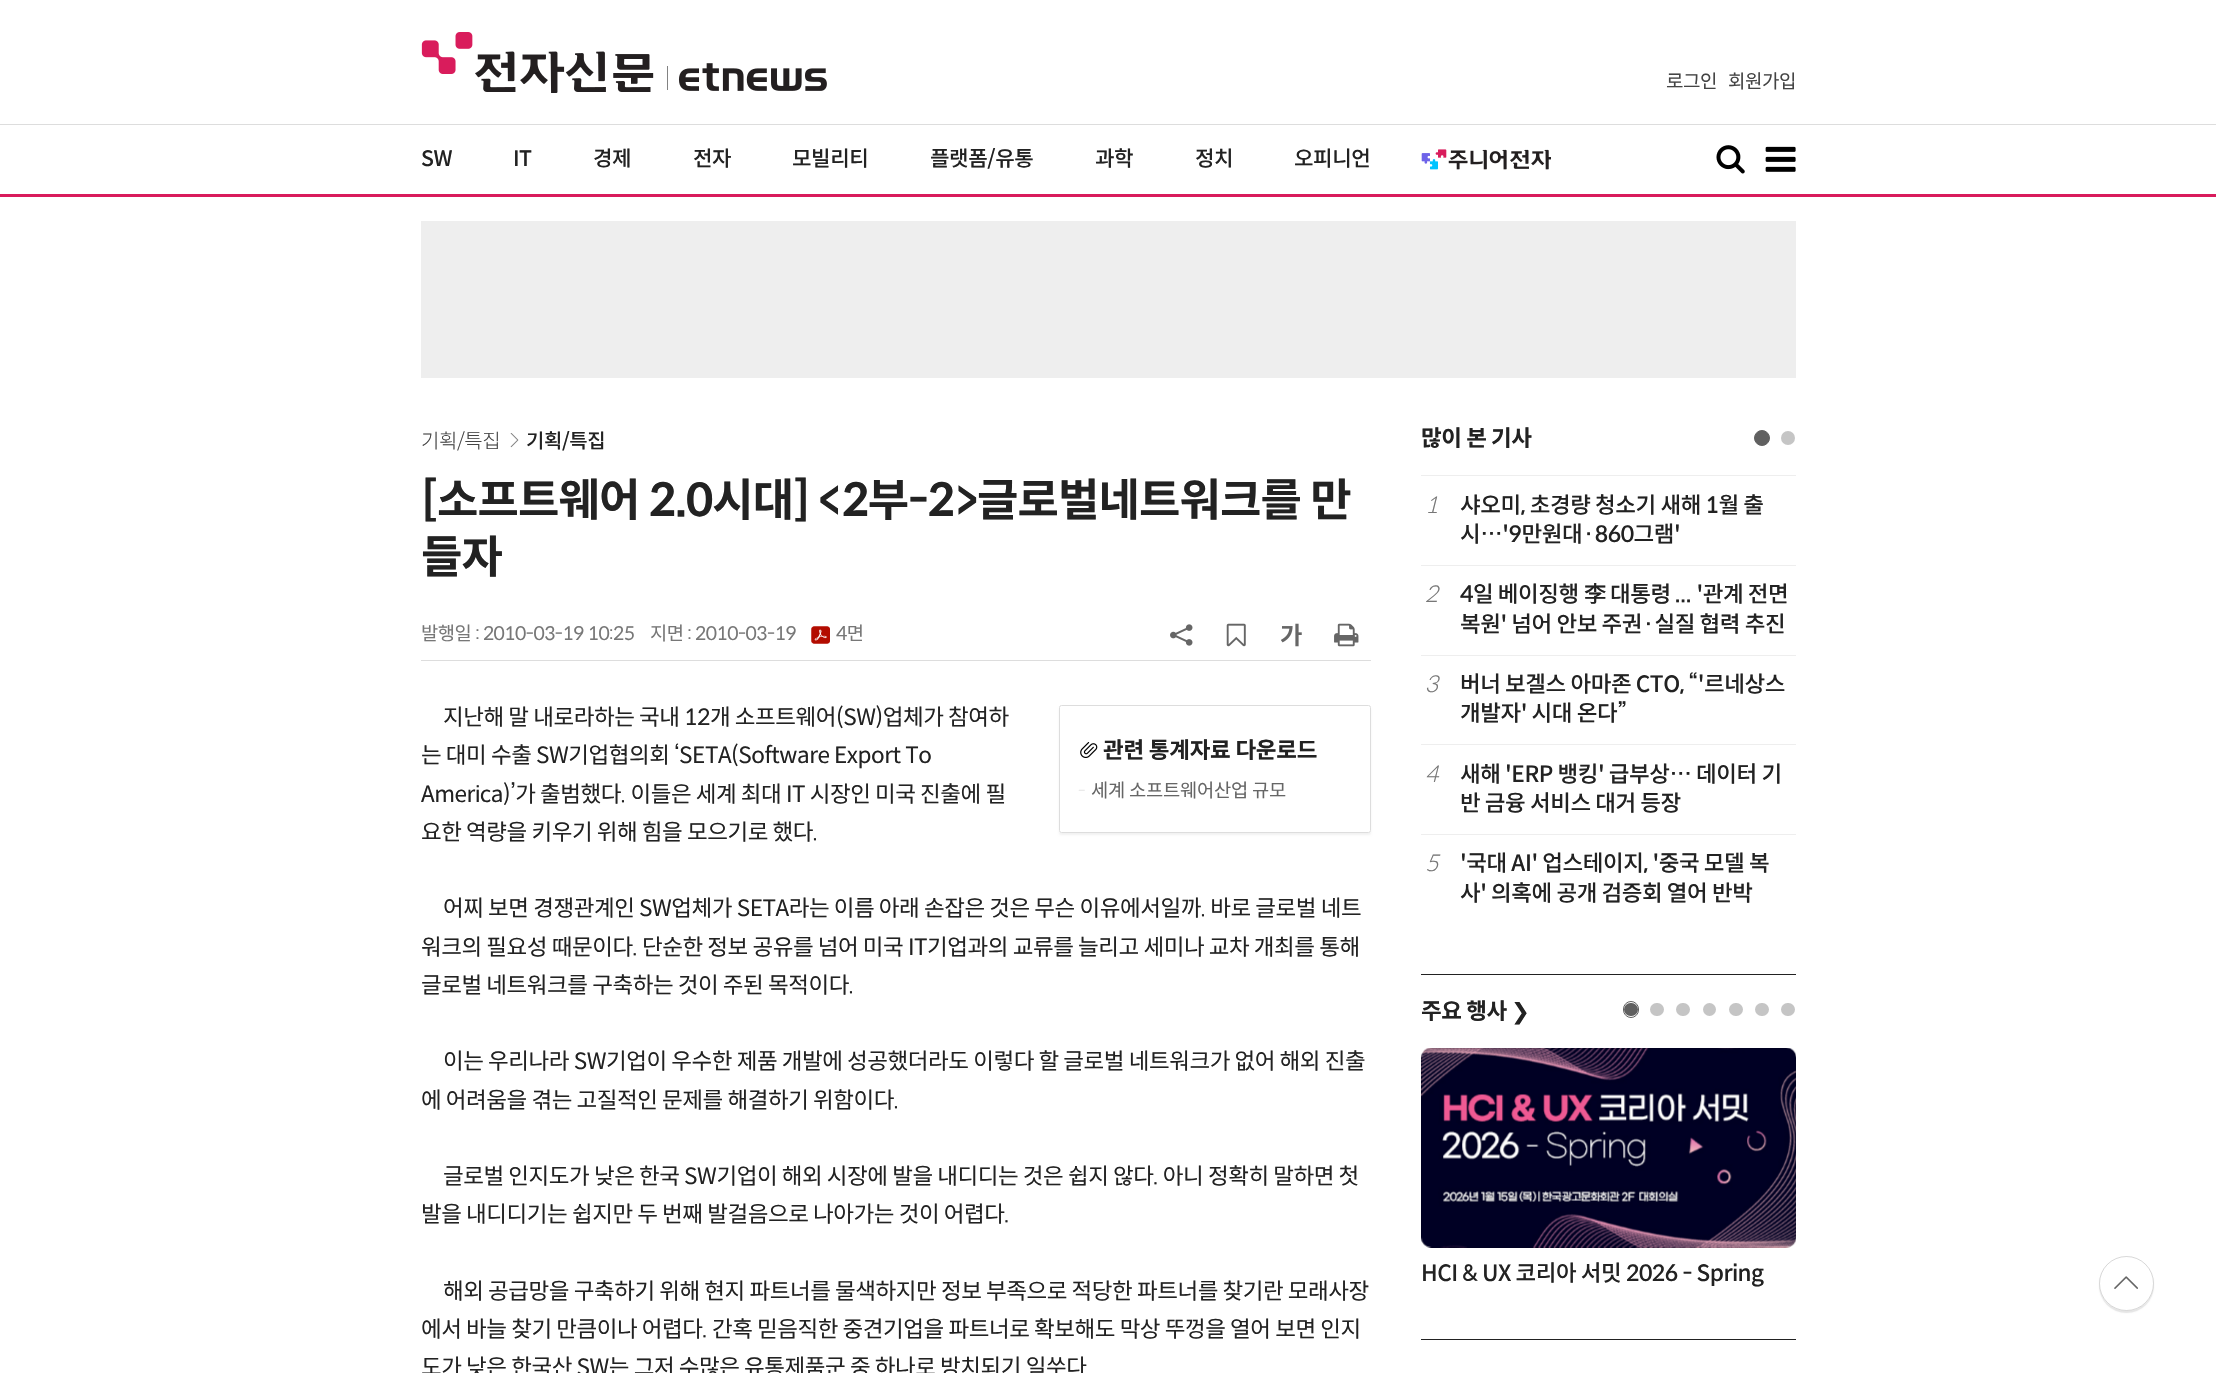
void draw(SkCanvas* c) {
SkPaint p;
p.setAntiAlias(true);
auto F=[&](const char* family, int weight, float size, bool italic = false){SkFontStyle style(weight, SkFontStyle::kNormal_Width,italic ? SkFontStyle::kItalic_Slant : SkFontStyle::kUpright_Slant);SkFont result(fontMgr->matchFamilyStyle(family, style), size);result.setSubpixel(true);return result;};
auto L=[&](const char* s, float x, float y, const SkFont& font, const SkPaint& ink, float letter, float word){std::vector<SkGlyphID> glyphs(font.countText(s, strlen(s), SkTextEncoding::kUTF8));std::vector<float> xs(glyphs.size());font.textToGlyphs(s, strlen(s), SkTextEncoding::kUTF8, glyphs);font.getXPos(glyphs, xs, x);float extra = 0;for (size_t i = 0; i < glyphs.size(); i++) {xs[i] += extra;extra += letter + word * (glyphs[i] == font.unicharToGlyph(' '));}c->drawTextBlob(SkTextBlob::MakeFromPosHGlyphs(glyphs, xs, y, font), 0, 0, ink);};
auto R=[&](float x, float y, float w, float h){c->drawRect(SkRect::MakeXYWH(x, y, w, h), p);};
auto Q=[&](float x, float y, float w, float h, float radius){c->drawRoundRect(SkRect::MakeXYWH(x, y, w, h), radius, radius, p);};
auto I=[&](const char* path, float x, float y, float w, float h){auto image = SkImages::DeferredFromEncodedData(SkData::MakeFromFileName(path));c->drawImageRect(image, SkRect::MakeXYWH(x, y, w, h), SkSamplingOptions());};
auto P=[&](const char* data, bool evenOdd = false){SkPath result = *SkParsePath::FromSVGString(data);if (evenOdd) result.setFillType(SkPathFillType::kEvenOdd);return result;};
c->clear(0xffffffff);
p.setColor(0xffd91b5c);
R(0,194,2216,3);
p.setColor(0xffdddddd);
R(0,124,2216,1);
I("1.png",421,32,406,61);
auto f1 = F("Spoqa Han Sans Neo",400,19);
p.setColor(0xff444444);
L("로그인",1666,88,f1,p,-.45,0);
L("회원가입",1728,88,f1,p,-.45,0);
auto f2 = F("Spoqa Han Sans Neo",500,21.25);
p.setColor(0xff222222);
L("SW",421,166,f2,p,-.45,0);
L("IT",513,166,f2,p,-.45,0);
L("경제",593,166,f2,p,-.45,0);
L("전자",693,166,f2,p,-.45,0);
L("모빌리티",792,166,f2,p,-.45,0);
L("플랫폼/유통",930,166,f2,p,-.45,0);
L("과학",1095,166,f2,p,-.45,0);
L("정치",1195,166,f2,p,-.45,0);
L("오피니언",1294,166,f2,p,-.45,0);
I("2.png",1421,149,130,21);
I("3.png",1716,145,29,29);
I("4.png",1765,146,31,26);
p.setColor(0xffeeeeee);
R(421,221,1375,157);
p.setColor(0xffdddddd);
R(421,660,950,1);
auto f3 = F("Spoqa Han Sans Neo",300,20);
p.setColor(0xff444444);
L("기획/특집",421,448,f3,p,-.45,0);
I("5.png",510,433,9,15);
auto f4 = F("Spoqa Han Sans Neo",500,20);
p.setColor(0xff222222);
L("기획/특집",526,448,f4,p,-.45,0);
auto f5 = F("Spoqa Han Sans Neo",700,45);
L("[소프트웨어 2.0시대] <2부-2>글로벌네트워크를 만",421,516,f5,p,-.9,0);
L("들자",421,573,f5,p,-.9,0);
auto f6 = F("Spoqa Han Sans Neo",400,18.75);
p.setColor(0xff777777);
L("발행일 : 2010-03-19 10:25",421,640,f6,p,-.45,0);
L("지면 : 2010-03-19",650,640,f6,p,-.45,0);
I("6.png",811,626,19,18);
L("4면",836,640,f6,p,-.45,0);
I("7.png",1170,624,23,22);
I("8.png",1226,623,20,24);
I("9.png",1281,623,21,24);
I("10.png",1334,623,25,24);
auto f7 = F("Spoqa Han Sans Neo",400,22.5);
p.setColor(0xff222222);
L("지난해 말 내로라하는 국내 12개 소프트웨어(SW)업체가 참여하",443,725,f7,p,-.45,0);
L("는 대미 수출 SW기업협의회 ‘SETA(Software Export To",421,763,f7,p,-.45,0);
L("America)’가 출범했다. 이들은 세계 최대 IT 시장인 미국 진출에 필",421,802,f7,p,-.45,0);
L("요한 역량을 키우기 위해 힘을 모으기로 했다.",421,840,f7,p,-.45,0);
L("어찌 보면 경쟁관계인 SW업체가 SETA라는 이름 아래 손잡은 것은 무슨 이유에서일까. 바로 글로벌 네트",443,916,f7,p,-.45,0);
L("워크의 필요성 때문이다. 단순한 정보 공유를 넘어 미국 IT기업과의 교류를 늘리고 세미나 교차 개최를 통해",421,955,f7,p,-.45,0);
L("글로벌 네트워크를 구축하는 것이 주된 목적이다.",421,993,f7,p,-.45,0);
L("이는 우리나라 SW기업이 우수한 제품 개발에 성공했더라도 이렇다 할 글로벌 네트워크가 없어 해외 진출",443,1069,f7,p,-.45,0);
L("에 어려움을 겪는 고질적인 문제를 해결하기 위함이다.",421,1108,f7,p,-.45,0);
L("글로벌 인지도가 낮은 한국 SW기업이 해외 시장에 발을 내디디는 것은 쉽지 않다. 아니 정확히 말하면 첫",443,1184,f7,p,-.45,0);
L("발을 내디디기는 쉽지만 두 번째 발걸음으로 나아가는 것이 어렵다.",421,1222,f7,p,-.45,0);
L("해외 공급망을 구축하기 위해 현지 파트너를 물색하지만 정보 부족으로 적당한 파트너를 찾기란 모래사장",443,1299,f7,p,-.45,0);
L("에서 바늘 찾기 만큼이나 어렵다. 간혹 믿음직한 중견기업을 파트너로 확보해도 막상 뚜껑을 열어 보면 인지",421,1337,f7,p,-.45,0);
L("도가 낮은 한국산 SW는 그저 수많은 유통제품군 중 하나로 방치되기 일쑤다",421,1375,f7,p,-.45,0);
c->save();
c->clipPath(P("M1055 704h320v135h-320zm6.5 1h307c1.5 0 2.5 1 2.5 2.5v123c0 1.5-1 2.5-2.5 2.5h-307c-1.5 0-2.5-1-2.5-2.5v-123c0-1.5 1-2.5 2.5-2.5z",true),true);
p.setColor(0x0d000000);
p.setMaskFilter(SkMaskFilter::MakeBlur(kNormal_SkBlurStyle, 1));
c->drawRoundRect(SkRect::MakeXYWH(1059,708,312,127),2.5,2.5,p);
p.setMaskFilter(nullptr);
c->restore();
p.setStroke(true);
p.setStrokeWidth(1);
p.setColor(0xffdddddd);
c->drawRoundRect(SkRect::MakeXYWH(1059.5,705.5,311,127),2,2,p);
I("11.png",1080,742,18,16);
auto f8 = F("Spoqa Han Sans Neo",700,22.5);
p.setStroke(false);
p.setColor(0xff222222);
L("관련 통계자료 다운로드",1103,758,f8,p,-.25,0);
auto f9 = F("Spoqa Han Sans Neo",100,18.75);
p.setColor(0xffdddddd);
L("-",1078,797,f9,p,-.25,0);
p.setColor(0xff666666);
L("세계 소프트웨어산업 규모",1091,797,f6,p,-.25,0);
p.setColor(0xff222222);
L("많이 본 기사",1421,446,f8,p,-.45,0);
p.setColor(0xff606060);
c->drawCircle(1762,438,7.5,p);
p.setStroke(true);
c->drawCircle(1762,438,7.5,p);
p.setStroke(false);
p.setColor(0xffc5c5c5);
c->drawCircle(1788,438,7,p);
p.setColor(0xffeeeeee);
R(1421,475,375,1);
auto f10 = F("Spoqa Han Sans Neo",300,22.5,true);
p.setColor(0xff777777);
L("1",1425,513,f10,p,-.45,0);
auto f11 = F("Spoqa Han Sans Neo",500,22.5);
p.setColor(0xff222222);
L("샤오미, 초경량 청소기 새해 1월 출",1460,513,f11,p,-.45,0);
L("시…'9만원대·860그램'",1460,542,f11,p,-.45,0);
p.setColor(0xffeeeeee);
R(1421,565,375,1);
p.setColor(0xff777777);
L("2",1425,602,f10,p,-.45,0);
p.setColor(0xff222222);
L("4일 베이징행",1460,602,f11,p,-.45,0);
auto f12 = F("Noto Sans KR",500,22.5);
L("李",1584,602,f12,p,-.45,0);
L("대통령 ... '관계 전면",1610,602,f11,p,-.45,0);
L("복원' 넘어 안보 주권·실질 협력 추진",1460,632,f11,p,-.45,0);
p.setColor(0xffeeeeee);
R(1421,655,375,1);
p.setColor(0xff777777);
L("3",1425,692,f10,p,-.45,0);
p.setColor(0xff222222);
L("버너 보겔스 아마존 CTO, “'르네상스",1460,692,f11,p,-.45,0);
L("개발자' 시대 온다”",1460,721,f11,p,-.45,0);
p.setColor(0xffeeeeee);
R(1421,744,375,1);
p.setColor(0xff777777);
L("4",1425,782,f10,p,-.45,0);
p.setColor(0xff222222);
L("새해 'ERP 뱅킹' 급부상… 데이터 기",1460,782,f11,p,-.45,0);
L("반 금융 서비스 대거 등장",1460,811,f11,p,-.45,0);
p.setColor(0xffeeeeee);
R(1421,834,375,1);
p.setColor(0xff777777);
L("5",1425,871,f10,p,-.45,0);
p.setColor(0xff222222);
L("'국대 AI' 업스테이지, '중국 모델 복",1460,871,f11,p,-.45,0);
L("사' 의혹에 공개 검증회 열어 반박",1460,901,f11,p,-.45,0);
R(1421,974,375,1);
L("주요 행사",1421,1019,f8,p,-.45,0);
auto f13 = F("DejaVu Sans",400,22.5);
L("❯",1511,1019,f13,p,-.45,0);
p.setColor(0xff606060);
Q(1624,1003,14,13,6.5);
p.setStroke(true);
c->drawRoundRect(SkRect::MakeXYWH(1623.5,1001.5,15,16),7.5,7.5,p);
p.setStroke(false);
p.setColor(0xffc5c5c5);
Q(1650,1003,14,13,6.5);
Q(1676,1003,14,13,6.5);
c->drawCircle(1709.5,1009.5,6.5,p);
Q(1729,1003,14,13,6.5);
Q(1755,1003,14,13,6.5);
Q(1781,1003,14,13,6.5);
I("12.png",1421,1048,375,200);
p.setStroke(true);
p.setColor(0x1a000000);
c->drawRoundRect(SkRect::MakeXYWH(1421.5,1048.5,374,199),9.5,9.5,p);
p.setStroke(false);
p.setColor(0xff222222);
L("HCI & UX 코리아 서밋 2026 - Spring",1421,1281,f11,p,-.45,0);
R(1421,1339,375,1);
p.setColor(0x1a000000);
p.setMaskFilter(SkMaskFilter::MakeBlur(kNormal_SkBlurStyle, .5));
c->drawRoundRect(SkRect::MakeXYWH(2099,1258,55,55),27.5,27.5,p);
p.setMaskFilter(nullptr);
p.setColor(0xffffffff);
c->drawCircle(2126.5,1283.5,27.5,p);
p.setStroke(true);
p.setColor(0x26000000);
c->drawCircle(2126.5,1283.5,27,p);
I("13.png",2114,1276,24,13);
}
